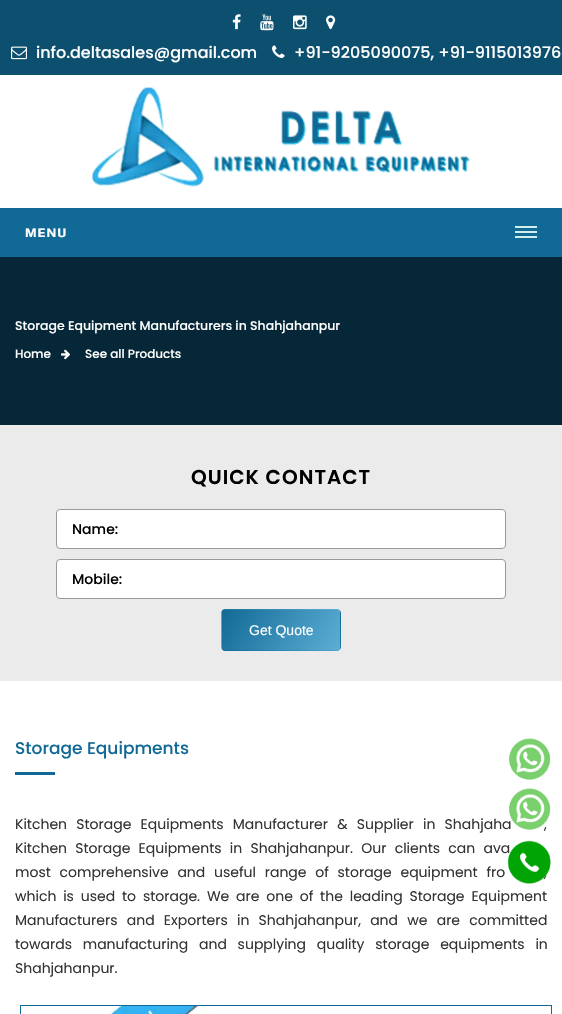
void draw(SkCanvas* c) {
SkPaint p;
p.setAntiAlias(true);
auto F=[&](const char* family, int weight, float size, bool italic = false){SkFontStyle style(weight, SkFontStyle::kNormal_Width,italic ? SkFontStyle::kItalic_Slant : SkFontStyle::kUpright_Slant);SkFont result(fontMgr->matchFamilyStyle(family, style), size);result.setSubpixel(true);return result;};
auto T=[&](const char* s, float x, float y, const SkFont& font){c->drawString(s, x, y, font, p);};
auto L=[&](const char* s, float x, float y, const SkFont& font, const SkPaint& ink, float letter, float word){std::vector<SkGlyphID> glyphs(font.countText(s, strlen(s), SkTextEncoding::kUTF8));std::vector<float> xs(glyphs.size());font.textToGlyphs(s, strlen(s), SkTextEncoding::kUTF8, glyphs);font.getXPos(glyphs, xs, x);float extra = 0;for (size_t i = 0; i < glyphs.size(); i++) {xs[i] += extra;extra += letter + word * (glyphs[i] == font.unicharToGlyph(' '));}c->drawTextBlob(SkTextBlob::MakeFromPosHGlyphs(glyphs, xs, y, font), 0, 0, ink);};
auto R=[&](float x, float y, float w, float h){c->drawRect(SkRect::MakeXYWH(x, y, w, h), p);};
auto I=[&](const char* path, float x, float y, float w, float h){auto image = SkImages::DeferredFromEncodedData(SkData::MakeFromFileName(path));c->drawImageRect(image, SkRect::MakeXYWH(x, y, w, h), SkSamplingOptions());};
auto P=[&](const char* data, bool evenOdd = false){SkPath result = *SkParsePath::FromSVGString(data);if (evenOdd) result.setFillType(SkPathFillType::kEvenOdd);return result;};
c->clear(0xffffffff);
p.setColor(0xff0c4f6e);
R(0,0,562,75);
I("1.png",232,14,9,16);
I("2.png",260,14,14,17);
I("3.png",293,15,14,15);
I("4.png",326,15,10,15);
I("5.png",11,46,16,14);
auto f1 = F("Poppins",500,16);
p.setColor(0xffffffff);
T("info.deltasales@gmail.com",36,58,f1);
I("6.png",272,45,13,13);
T("+91-9205090075, +91-9115013976",294,58,f1);
I("7.png",91,87,379,100);
p.setColor(0xff116a95);
R(0,208,562,49);
auto f2 = F("Play",700,13);
p.setColor(0xffffffff);
L("MENU",25,237,f2,p,1,0);
p.setColor(0xffd3eced);
R(515,226,22,2);
R(515,231,22,2);
R(515,236,22,2);
p.setColor(0xff062737);
R(0,257,562,168);
auto f3 = F("Poppins",500,12.5);
p.setColor(0xffffffff);
T("Storage Equipment Manufacturers in Shahjahanpur",15,330,f3);
auto f4 = F("Poppins",500,12);
T("Home",15,358,f4);
I("8.png",61,349,9,11);
T("See all Products",85,358,f4);
p.setColor(0xffebebeb);
R(0,425,562,256);
auto f5 = F("Poppins",600,20);
p.setColor(0xff000000);
L("QUICK CONTACT",191,484,f5,p,1,0);
p.setColor(0xffffffff);
c->drawRoundRect(SkRect::MakeXYWH(56.5,509.5,449,39),3.5,3.5,p);
p.setStroke(true);
p.setStrokeWidth(1);
p.setColor(0xff999999);
c->drawRoundRect(SkRect::MakeXYWH(56.5,509.5,449,39),3.5,3.5,p);
auto f6 = F("Poppins",500,14);
p.setStroke(false);
p.setColor(0xff000000);
T("Name:",72,534,f6);
p.setColor(0xffffffff);
c->drawRoundRect(SkRect::MakeXYWH(56.5,559.5,449,39),3.5,3.5,p);
p.setStroke(true);
p.setColor(0xff999999);
c->drawRoundRect(SkRect::MakeXYWH(56.5,559.5,449,39),3.5,3.5,p);
p.setStroke(false);
p.setColor(0xff000000);
T("Mobile:",72,584,f6);
c->save();
c->clipPath(P("M225 609h112c2 0 4 2 4 4v34c0 2-2 4-4 4h-112c-2 0-4-2-4-4v-34c0-2 2-4 4-4z"),true);
{
const SkColor colors[] = {0xff116a95,0xff5daed5};
const float stops[] = {0,1};
const SkPoint ends[] = {{228,559}, {334,621}};
p.setShader(SkGradientShader::MakeLinear(ends, colors, stops, 2, SkTileMode::kClamp));
p.setAlpha(255);
}
R(222,609,118,1);
{
const SkColor colors[] = {0xff116a95,0xff5daed5};
const float stops[] = {0,1};
const SkPoint ends[] = {{110,599}, {216,661}};
p.setShader(SkGradientShader::MakeLinear(ends, colors, stops, 2, SkTileMode::kClamp));
p.setAlpha(255);
}
R(221,610,1,40);
{
const SkColor colors[] = {0xff116a95,0xff5daed5};
const float stops[] = {0,1};
const SkPoint ends[] = {{228,599}, {334,661}};
p.setShader(SkGradientShader::MakeLinear(ends, colors, stops, 2, SkTileMode::kClamp));
p.setAlpha(255);
}
R(222,610,118,40);
{
const SkColor colors[] = {0xff116a95,0xff5daed5};
const float stops[] = {0,1};
const SkPoint ends[] = {{346,599}, {452,661}};
p.setShader(SkGradientShader::MakeLinear(ends, colors, stops, 2, SkTileMode::kClamp));
p.setAlpha(255);
}
R(340,610,1,40);
{
const SkColor colors[] = {0xff116a95,0xff5daed5};
const float stops[] = {0,1};
const SkPoint ends[] = {{228,639}, {334,701}};
p.setShader(SkGradientShader::MakeLinear(ends, colors, stops, 2, SkTileMode::kClamp));
p.setAlpha(255);
}
R(222,650,118,1);
c->restore();
auto f7 = F("Liberation Sans",400,14);
p.setShader(nullptr);
p.setColor(0xffffffff);
T("Get Quote",249,635,f7);
I("9.png",508,738,43,42);
auto f8 = F("Poppins",500,17);
p.setColor(0xff116a95);
T("Storage Equipments",15,754,f8);
R(15,772,40,3);
auto f9 = F("Poppins",400,14);
p.setColor(0xff333333);
L("Kitchen Storage Equipments Manufacturer & Supplier in Shahjaha",15,829,f9,p,0,5.5);
L(",",544,829,f9,p,0,5.5);
L("Kitchen Storage Equipments in Shahjahanpur. Our clients can ava",15,853,f9,p,0,4.5);
L("most comprehensive and useful range of storage equipment fro",15,877,f9,p,0,5);
L(",",544,877,f9,p,0,5);
L("which is used to storage. We are one of the leading Storage Equipment",15,901,f9,p,0,3.1);
L("Manufacturers and Exporters in Shahjahanpur, and we are committed",15,925,f9,p,0,5.5);
L("towards manufacturing and supplying quality storage equipments in",15,949,f9,p,0,7);
T("Shahjahanpur.",15,973,f9);
p.setColor(0xff116a95);
R(20,1005,532,9);
I("10.png",21,1006,530,8);
I("11.png",508,788,43,42);
I("12.png",508,840,43,44);
}
